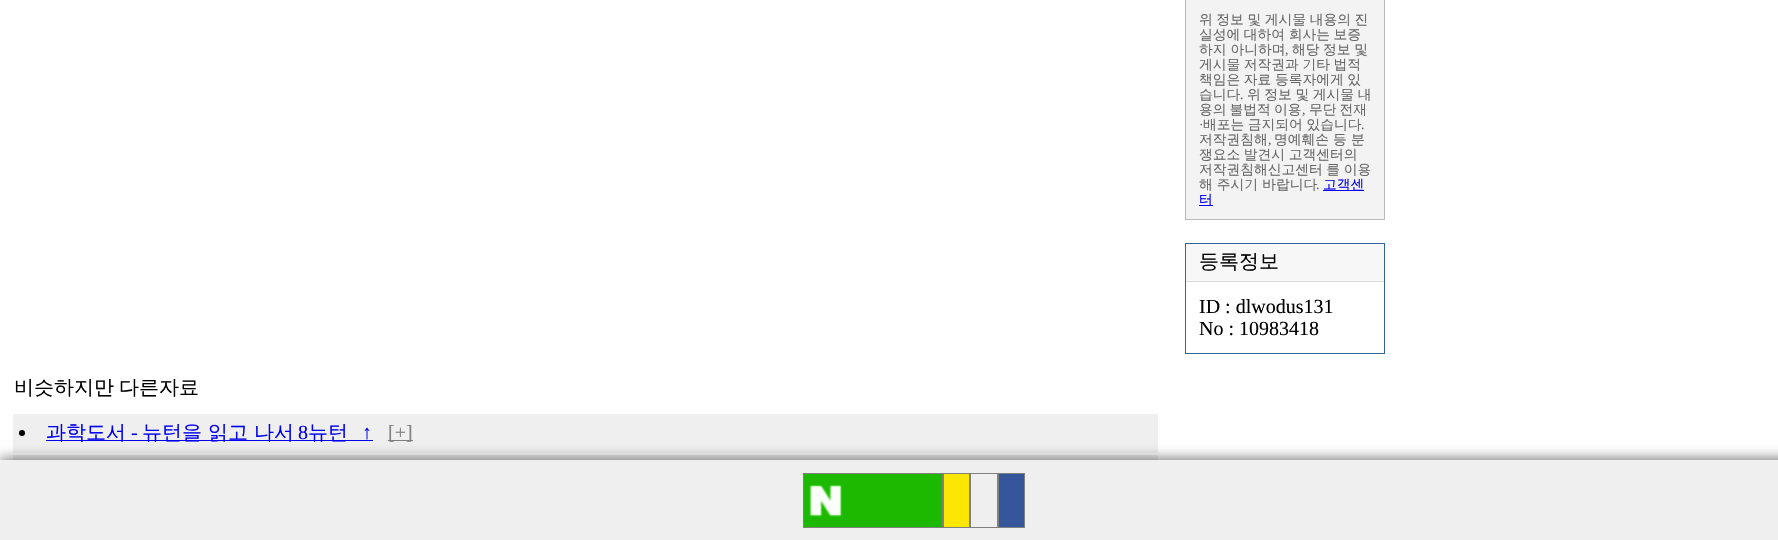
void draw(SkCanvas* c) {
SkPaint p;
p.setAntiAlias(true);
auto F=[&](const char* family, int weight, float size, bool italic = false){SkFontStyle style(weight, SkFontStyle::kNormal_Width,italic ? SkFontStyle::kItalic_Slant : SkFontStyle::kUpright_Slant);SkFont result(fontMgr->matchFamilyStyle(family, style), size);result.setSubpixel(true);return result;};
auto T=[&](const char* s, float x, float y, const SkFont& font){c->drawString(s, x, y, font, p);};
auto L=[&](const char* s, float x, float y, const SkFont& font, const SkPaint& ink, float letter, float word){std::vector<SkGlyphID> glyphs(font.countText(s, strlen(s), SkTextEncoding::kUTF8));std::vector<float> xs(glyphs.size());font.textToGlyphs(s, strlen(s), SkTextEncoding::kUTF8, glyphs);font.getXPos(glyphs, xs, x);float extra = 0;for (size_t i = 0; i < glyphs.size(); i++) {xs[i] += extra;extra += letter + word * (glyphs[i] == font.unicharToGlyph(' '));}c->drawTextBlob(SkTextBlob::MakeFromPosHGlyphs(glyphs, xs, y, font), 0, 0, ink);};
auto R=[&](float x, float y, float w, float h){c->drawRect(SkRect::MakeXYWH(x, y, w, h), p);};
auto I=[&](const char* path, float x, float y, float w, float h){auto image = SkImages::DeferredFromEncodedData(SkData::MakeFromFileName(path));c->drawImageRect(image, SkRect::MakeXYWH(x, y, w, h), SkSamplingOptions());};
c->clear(0xffffffff);
p.setStroke(true);
p.setStrokeWidth(1);
p.setColor(0xffb9b9b9);
c->drawRect(SkRect::MakeXYWH(1185.5,-.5,199,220),p);
p.setStroke(false);
p.setColor(0xfff3f3f3);
R(1186,0,198,219);
auto f1 = F("WenQuanYi Zen Hei",500,13.75);
p.setColor(0xff666666);
L("위 정보 및 게시물 내용의 진",1199,24,f1,p,0,-.5);
L("실성에 대하여 회사는 보증",1199,39,f1,p,0,-.5);
T("하지 아니하며",1199,54,f1);
auto f2 = F("Liberation Serif",400,13.75);
T(",",1285,54,f2);
L("해당 정보 및",1292,54,f1,p,0,-.5);
L("게시물 저작권과 기타 법적",1199,69,f1,p,0,-.5);
L("책임은 자료 등록자에게 있",1199,84,f1,p,0,-.5);
T("습니다",1199,99,f1);
T(".",1240,99,f2);
L("위 정보 및 게시물 내",1247,99,f1,p,0,-.5);
L("용의 불법적 이용",1199,114,f1,p,0,-1);
T(",",1302,114,f2);
L("무단 전재",1309,114,f1,p,0,-1);
T("·",1199,129,f2);
L("배포는 금지되어 있습니다",1203,129,f1,p,0,-.5);
T(".",1361,129,f2);
T("저작권침해",1199,144,f1);
T(",",1268,144,f2);
T("명예훼손 등 분",1274,144,f1);
L("쟁요소 발견시 고객센터의",1199,159,f1,p,0,-.5);
L("저작권침해신고센터 를 이용",1199,174,f1,p,0,-.5);
T("해 주시기 바랍니다",1199,189,f1);
T(".",1316,189,f2);
p.setColor(0xff0000ee);
R(1323,190,41,1);
T("고객센",1323,189,f1);
R(1199,205,14,1);
T("터",1199,204,f1);
p.setStroke(true);
p.setColor(0xff31639c);
c->drawRect(SkRect::MakeXYWH(1185.5,243.5,199,110),p);
p.setStroke(false);
p.setColor(0xfff7f7f7);
R(1186,244,198,37);
auto f3 = F("WenQuanYi Zen Hei",500,20);
p.setColor(0xff000000);
T("등록정보",1199,268,f3);
p.setColor(0xffdcdcdc);
R(1186,281,198,1);
auto f4 = F("Liberation Serif",400,20);
p.setColor(0xff000000);
T("ID : dlwodus131",1199,313,f4);
T("No : 10983418",1199,335,f4);
L("비슷하지만 다른자료",14,394,f3,p,0,-1);
p.setColor(0xffefefef);
R(13,414,1145,39);
p.setColor(0xff000000);
c->drawCircle(22,433,3,p);
p.setColor(0xff0000ee);
R(46,440,327,1);
T("과학도서",46,439,f3);
T("-",131,439,f4);
T("뉴턴을 읽고 나서",142,439,f3);
T("8",298,439,f4);
T("뉴턴",308,439,f3);
T("↑",362,439,f4);
p.setColor(0xff808080);
R(388,440,25,1);
T("[+]",388,439,f4);
p.setColor(0xffefefef);
R(13,455,1145,5);
p.setColor(0x80000000);
p.setMaskFilter(SkMaskFilter::MakeBlur(kNormal_SkBlurStyle, 6));
c->drawRect(SkRect::MakeXYWH(0,458,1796,80),p);
p.setMaskFilter(nullptr);
p.setColor(0xffefefef);
R(0,460,1778,80);
p.setColor(0xff1cb900);
c->drawRect(SkRect::MakeXYWH(803.5,473.5,139,54),p);
p.setStroke(true);
p.setColor(0xff808080);
c->drawRect(SkRect::MakeXYWH(803.5,473.5,139,54),p);
I("1.png",809,485,33,32);
p.setStroke(false);
p.setColor(0xfffce604);
c->drawRect(SkRect::MakeXYWH(943.5,473.5,26,54),p);
p.setStroke(true);
p.setColor(0xff808080);
c->drawRect(SkRect::MakeXYWH(943.5,473.5,26,54),p);
c->drawRect(SkRect::MakeXYWH(970.5,473.5,27,54),p);
p.setStroke(false);
p.setColor(0xff35569a);
c->drawRect(SkRect::MakeXYWH(998.5,473.5,26,54),p);
p.setStroke(true);
p.setColor(0xff808080);
c->drawRect(SkRect::MakeXYWH(998.5,473.5,26,54),p);
}
